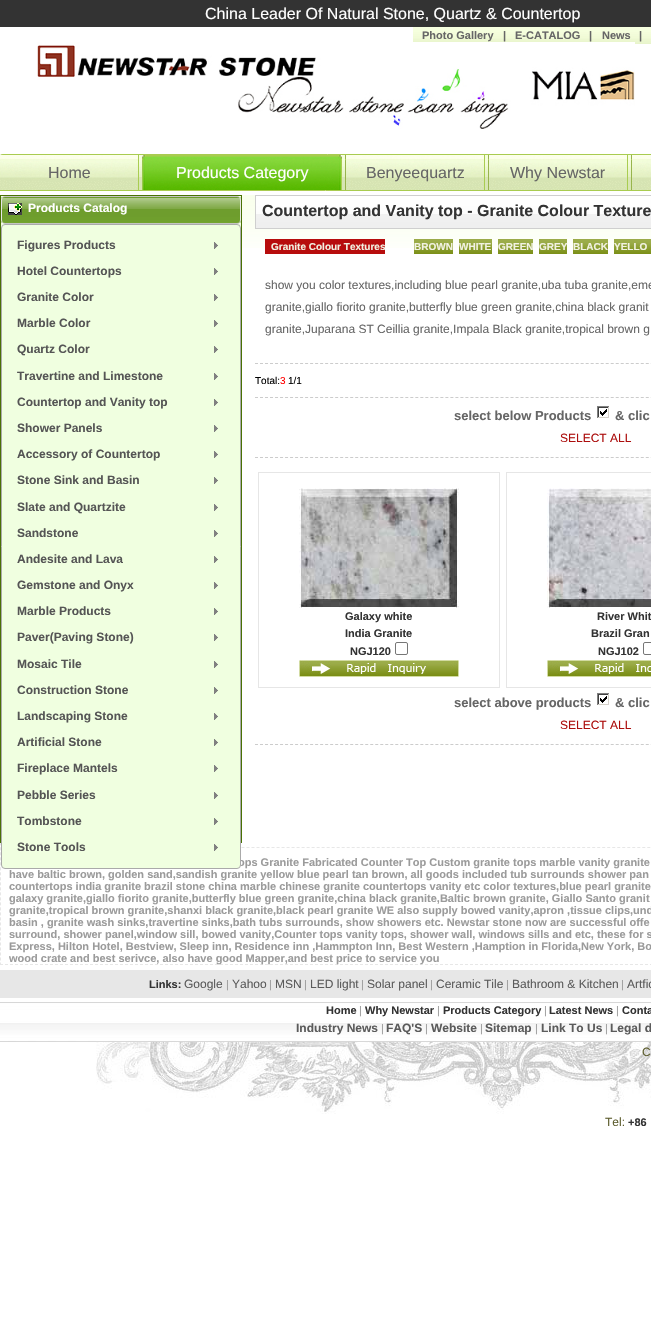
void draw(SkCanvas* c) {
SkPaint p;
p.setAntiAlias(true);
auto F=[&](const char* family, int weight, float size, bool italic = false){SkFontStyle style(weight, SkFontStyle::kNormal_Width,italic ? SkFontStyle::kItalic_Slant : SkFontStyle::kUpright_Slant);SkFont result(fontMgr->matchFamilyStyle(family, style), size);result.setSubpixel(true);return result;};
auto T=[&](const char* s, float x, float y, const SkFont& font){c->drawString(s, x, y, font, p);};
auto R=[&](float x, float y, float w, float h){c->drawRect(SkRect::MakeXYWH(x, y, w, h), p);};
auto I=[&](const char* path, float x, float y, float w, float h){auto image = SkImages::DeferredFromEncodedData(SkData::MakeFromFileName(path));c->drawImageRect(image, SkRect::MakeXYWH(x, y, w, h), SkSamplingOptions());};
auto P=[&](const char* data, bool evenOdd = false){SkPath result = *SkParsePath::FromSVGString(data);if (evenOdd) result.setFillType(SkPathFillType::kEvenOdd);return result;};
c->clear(0xffffffff);
p.setColor(0xff333333);
R(0,0,651,27);
auto f1 = F("Liberation Sans",400,16);
p.setColor(0xffffffff);
T("China Leader Of Natural Stone, Quartz & Countertop",205,19,f1);
I("1.png",413,27,93,15);
auto f2 = F("Liberation Sans",700,11);
p.setColor(0xff666666);
T("Photo Gallery",422,39,f2);
T("|",503,39,f2);
I("2.png",506,27,87,15);
T("E-CATALOG",515,39,f2);
T("|",589,39,f2);
I("3.png",593,27,49,17);
T("News",602,39,f2);
T("|",639,39,f2);
I("4.png",642,27,9,17);
I("5.png",37,42,598,87);
I("6.png",0,154,631,36);
p.setStroke(true);
p.setStrokeWidth(1);
p.setColor(0xffa9cc50);
c->drawPath(P("M3 154.5h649c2.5 0 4.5 2 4.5 4.5v31.5h-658v-31.5c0-2.5 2-4.5 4.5-4.5z"),p);
I("7.png",0,155,139,35);
p.setStroke(false);
p.setColor(0xff666666);
T("Home",48,178,f1);
I("8.png",142,155,200,35);
p.setColor(0xffffffff);
T("Products Category",176,178,f1);
I("9.png",345,155,140,35);
p.setColor(0xff666666);
T("Benyeequartz",366,178,f1);
I("9.png",488,155,140,35);
T("Why Newstar",510,178,f1);
I("10.png",631,155,20,35);
I("11.png",242,195,409,53);
p.setColor(0xfff2fde3);
R(1,196,240,32);
p.setStroke(true);
p.setColor(0xffe7e7e7);
p.setPathEffect(SkDashPathEffect::Make({{3,2}}, 0));
c->drawPath(P("M0 964.5h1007"),p);
p.setPathEffect(nullptr);
p.setPathEffect(SkDashPathEffect::Make({{3,2.01f}}, 0));
c->drawPath(P("M.5 206v759"),p);
p.setPathEffect(nullptr);
p.setColor(0xff497104);
c->drawRect(SkRect::MakeXYWH(.5,195.5,241,647),p);
I("12.png",1,197,240,26);
p.setColor(0xffc4c5c3);
c->drawPath(P("M2.5 197.5c.5-.5 1.5-1 2.5-1h232c1 0 2 .5 2.5 1"),p);
p.setColor(0xffe6e6e6);
c->drawPath(P("M239.5 197.5c.5 .5 1 1.5 1 2.5v20c0 1-.5 2-1 2.5"),p);
p.setColor(0xffc4c5c3);
c->drawPath(P("M239.5 222.5c-.5 .5-1.5 1-2.5 1h-232c-1 0-2-.5-2.5-1"),p);
p.setColor(0xffe6e6e6);
c->drawPath(P("M2.5 222.5c-.5-.5-1-1.5-1-2.5v-20c0-1 .5-2 1-2.5"),p);
I("13.png",8,203,14,12);
auto f3 = F("Liberation Sans",700,12);
p.setStroke(false);
p.setColor(0xffffffff);
T("Products Catalog",28,212,f3);
I("14.png",256,195,395,33);
p.setColor(0xffcfcfcf);
R(255,228,396,1);
R(255,195,1,34);
auto f4 = F("Liberation Sans",700,16);
p.setColor(0xff333333);
T("Countertop and Vanity top - Granite Colour Texture",262,216,f4);
p.setColor(0xffb70d0d);
R(265,239,120,15);
auto f5 = F("Liberation Sans",700,10);
p.setColor(0xfff2f2e2);
T("Granite Colour Textures",271,250,f5);
I("15.png",414,239,39,15);
T("BROWN",414,250,f5);
I("16.png",459,239,33,15);
T("WHITE",459,250,f5);
I("17.png",498,239,35,15);
T("GREEN",498,250,f5);
I("18.png",539,239,28,15);
T("GREY",539,250,f5);
I("17.png",573,239,35,15);
T("BLACK",573,250,f5);
I("19.png",614,239,37,15);
T("YELLO",614,250,f5);
auto f6 = F("Liberation Sans",400,12);
p.setColor(0xff666666);
T("show you color textures,including blue pearl granite,uba tuba granite,eme",265,289,f6);
T("granite,giallo fiorito granite,butterfly blue green granite,china black granit",265,311,f6);
T("granite,Juparana ST Ceillia granite,Impala Black granite,tropical brown g",265,333,f6);
p.setStroke(true);
p.setColor(0xffcccccc);
p.setPathEffect(SkDashPathEffect::Make({{3,2.01f}}, 0));
c->drawPath(P("M255 363.5h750"),p);
p.setPathEffect(nullptr);
auto f7 = F("Liberation Sans",400,10);
p.setStroke(false);
p.setColor(0xff000000);
T("Total:",255,384,f7);
p.setColor(0xffff0000);
T("3",280,384,f7);
p.setColor(0xff000000);
T("1/1",288,384,f7);
p.setStroke(true);
p.setColor(0xffcccccc);
p.setPathEffect(SkDashPathEffect::Make({{3,2.01f}}, 0));
c->drawPath(P("M255 397.5h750"),p);
p.setPathEffect(nullptr);
auto f8 = F("Liberation Sans",700,13);
p.setStroke(false);
p.setColor(0xff666666);
T("select below Products",454,420,f8);
I("20.png",597,405,12,13);
T("& clic",615,420,f8);
p.setColor(0xffac0e0d);
T("SELECT ALL",560,442,f6);
p.setStroke(true);
p.setColor(0xffcccccc);
p.setPathEffect(SkDashPathEffect::Make({{3,2.01f}}, 0));
c->drawPath(P("M255 457.5h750"),p);
p.setPathEffect(nullptr);
p.setColor(0xffe6e6e6);
c->drawRect(SkRect::MakeXYWH(258.5,472.5,241,215),p);
I("21.png",299,488,160,120);
p.setStroke(false);
p.setColor(0xff333333);
T("Galaxy white",345,620,f2);
T("India Granite",345,637,f2);
T("NGJ120",350,655,f2);
p.setStroke(true);
p.setColor(0xff767676);
c->drawRoundRect(SkRect::MakeXYWH(395.5,642.5,12,12),1.5,1.5,p);
I("22.png",299,660,160,17);
p.setColor(0xffe6e6e6);
c->drawRect(SkRect::MakeXYWH(506.5,472.5,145,215),p);
I("23.png",547,488,104,120);
p.setStroke(false);
p.setColor(0xff333333);
T("River Whit",597,620,f2);
T("Brazil Gran",591,637,f2);
T("NGJ102",598,655,f2);
p.setStroke(true);
p.setColor(0xff767676);
c->drawRoundRect(SkRect::MakeXYWH(643.5,642.5,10,12),1.5,1.5,p);
I("24.png",547,660,104,17);
p.setStroke(false);
p.setColor(0xff666666);
T("select above products",454,707,f8);
I("20.png",597,692,12,13);
T("& clic",615,707,f8);
p.setColor(0xffac0e0d);
T("SELECT ALL",560,729,f6);
p.setStroke(true);
p.setColor(0xffcccccc);
p.setPathEffect(SkDashPathEffect::Make({{3,2.01f}}, 0));
c->drawPath(P("M255 744.5h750"),p);
p.setPathEffect(nullptr);
p.setColor(0xffe7e7e7);
p.setPathEffect(SkDashPathEffect::Make({{3,2.01f}}, 0));
c->drawPath(P("M1 847.5h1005"),p);
p.setPathEffect(nullptr);
p.setStroke(false);
p.setColor(0xff9b9b9b);
T("ops Granite Fabricated Counter Top Custom granite tops marble vanity granite",238,866,f2);
p.setColor(0xfff0ffe0);
c->drawRoundRect(SkRect::MakeXYWH(1.5,224.5,239,644),3.5,3.5,p);
p.setStroke(true);
p.setColor(0xffaaaaaa);
c->drawRoundRect(SkRect::MakeXYWH(1.5,224.5,239,644),3.5,3.5,p);
p.setStroke(false);
p.setColor(0xff555555);
T("Figures Products",17,249,f3);
I("25.png",214,242,4,7);
T("Hotel Countertops",17,275,f3);
I("25.png",214,268,4,7);
T("Granite Color",17,301,f3);
I("25.png",214,294,4,7);
T("Marble Color",17,327,f3);
I("25.png",214,320,4,7);
T("Quartz Color",17,353,f3);
I("25.png",214,346,4,7);
T("Travertine and Limestone",17,380,f3);
I("25.png",214,373,4,7);
T("Countertop and Vanity top",17,406,f3);
I("25.png",214,399,4,7);
T("Shower Panels",17,432,f3);
I("25.png",214,425,4,7);
T("Accessory of Countertop",17,458,f3);
I("25.png",214,451,4,7);
T("Stone Sink and Basin",17,484,f3);
I("25.png",214,477,4,7);
T("Slate and Quartzite",17,511,f3);
I("25.png",214,504,4,7);
T("Sandstone",17,537,f3);
I("25.png",214,530,4,7);
T("Andesite and Lava",17,563,f3);
I("25.png",214,556,4,7);
T("Gemstone and Onyx",17,589,f3);
I("25.png",214,582,4,7);
T("Marble Products",17,615,f3);
I("25.png",214,608,4,7);
T("Paver(Paving Stone)",17,641,f3);
I("25.png",214,634,4,7);
T("Mosaic Tile",17,668,f3);
I("25.png",214,661,4,7);
T("Construction Stone",17,694,f3);
I("25.png",214,687,4,7);
T("Landscaping Stone",17,720,f3);
I("25.png",214,713,4,7);
T("Artificial Stone",17,746,f3);
I("25.png",214,739,4,7);
T("Fireplace Mantels",17,772,f3);
I("25.png",214,765,4,7);
T("Pebble Series",17,799,f3);
I("25.png",214,792,4,7);
T("Tombstone",17,825,f3);
I("25.png",214,818,4,7);
T("Stone Tools",17,851,f3);
I("25.png",214,844,4,7);
p.setColor(0xff9b9b9b);
T("have baltic brown, golden sand,sandish granite yellow blue pearl tan brown, all goods included tub surrounds shower pan",9,878,f2);
T("countertops india granite brazil stone china marble chinese granite countertops vanity etc color textures,blue pearl granite",9,890,f2);
T("galaxy granite,giallo fiorito granite,butterfly blue green granite,china black granite,Baltic brown granite, Giallo Santo granit",9,902,f2);
T("granite,tropical brown granite,shanxi black granite,black pearl granite WE also supply bowed vanity,apron ,tissue clips,und",9,914,f2);
T("basin , granite wash sinks,travertine sinks,bath tubs surrounds, show showers etc. Newstar stone now are successful offe",9,926,f2);
T("surround, shower panel,window sill, bowed vanity,Counter tops vanity tops, shower wall, windows sills and etc, these for s",9,938,f2);
T("Express, Hilton Hotel, Bestview, Sleep inn, Residence inn ,Hammpton Inn, Best Western ,Hamption in Florida,New York, Bo",9,950,f2);
T("wood crate and best serivce, also have good Mapper,and best price to service you",9,962,f2);
p.setColor(0xffe7e7e7);
R(0,970,651,28);
p.setColor(0xff333333);
T("Links:",149,988,f2);
p.setColor(0xff5b5b5b);
T("Google",184,988,f6);
auto f9 = F("Liberation Sans",400,11);
p.setColor(0xff9b9b9b);
T("|",226,988,f9);
p.setColor(0xff5b5b5b);
T("Yahoo",232,988,f6);
p.setColor(0xff9b9b9b);
T("|",269,988,f9);
p.setColor(0xff5b5b5b);
T("MSN",275,988,f6);
p.setColor(0xff9b9b9b);
T("|",304,988,f9);
p.setColor(0xff5b5b5b);
T("LED light",310,988,f6);
p.setColor(0xff9b9b9b);
T("|",361,988,f9);
p.setColor(0xff5b5b5b);
T("Solar panel",367,988,f6);
p.setColor(0xff9b9b9b);
T("|",430,988,f9);
p.setColor(0xff5b5b5b);
T("Ceramic Tile",436,988,f6);
p.setColor(0xff9b9b9b);
T("|",506,988,f9);
p.setColor(0xff5b5b5b);
T("Bathroom & Kitchen",512,988,f6);
p.setColor(0xff9b9b9b);
T("|",621,988,f9);
p.setColor(0xff5b5b5b);
T("Artfic",627,988,f6);
I("26.png",0,1002,651,40);
p.setColor(0xff333333);
T("Home",326,1014,f2);
p.setColor(0xff9b9b9b);
T("|",359,1014,f9);
p.setColor(0xff333333);
T("Why Newstar",365,1014,f2);
p.setColor(0xff9b9b9b);
T("|",437,1014,f9);
p.setColor(0xff333333);
T("Products Category",443,1014,f2);
p.setColor(0xff9b9b9b);
T("|",544,1014,f9);
p.setColor(0xff333333);
T("Latest News",549,1014,f2);
p.setColor(0xff9b9b9b);
T("|",616,1014,f9);
p.setColor(0xff333333);
T("Conta",622,1014,f2);
p.setColor(0xff5b5b5b);
T("Industry News",296,1032,f3);
p.setColor(0xff9b9b9b);
T("|",381,1032,f9);
p.setColor(0xff5b5b5b);
T("FAQ'S",386,1032,f3);
p.setColor(0xff9b9b9b);
T("|",425,1032,f9);
p.setColor(0xff5b5b5b);
T("Website",431,1032,f3);
p.setColor(0xff9b9b9b);
T("|",480,1032,f9);
p.setColor(0xff5b5b5b);
T("Sitemap",485,1032,f3);
p.setColor(0xff9b9b9b);
T("|",535,1032,f9);
p.setColor(0xff5b5b5b);
T("Link To Us",541,1032,f3);
p.setColor(0xff9b9b9b);
T("|",605,1032,f9);
p.setColor(0xff5b5b5b);
T("Legal d",610,1032,f3);
I("27.png",96,1042,555,72);
p.setColor(0xff5e5e2f);
T("C",642,1056,f6);
T("Tel:",605,1126,f6);
p.setColor(0xff333333);
T("+86",628,1126,f2);
}
